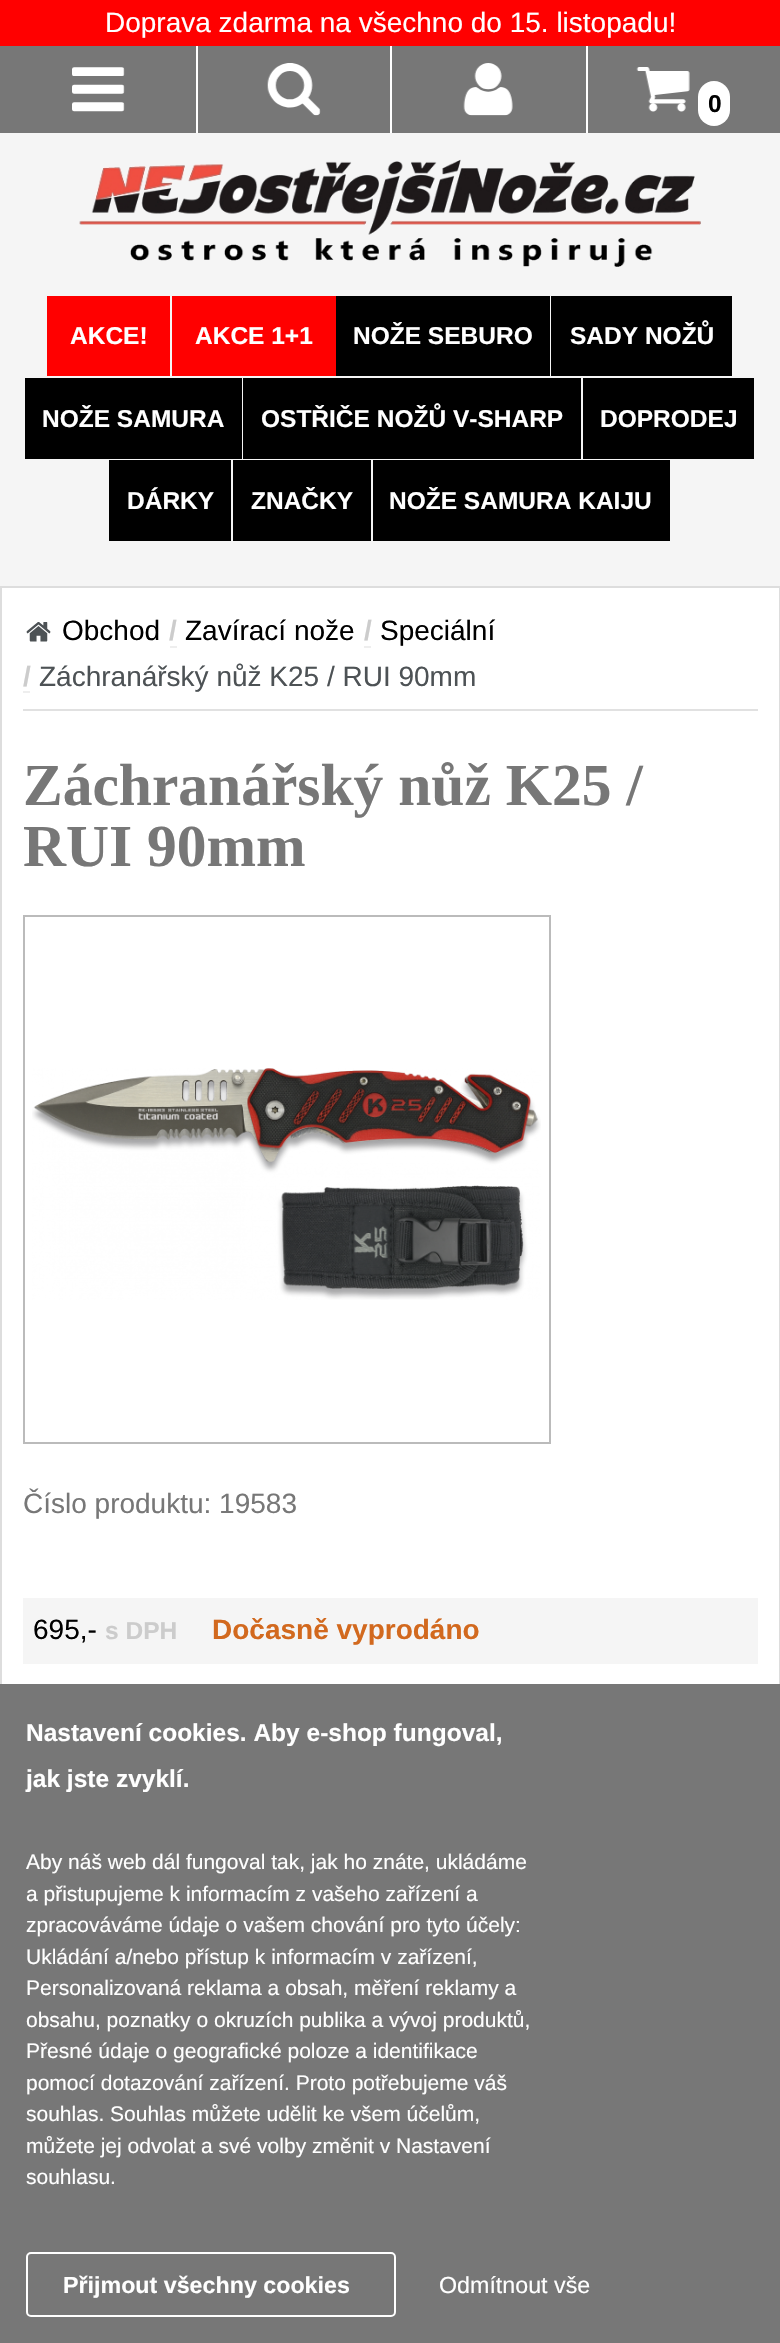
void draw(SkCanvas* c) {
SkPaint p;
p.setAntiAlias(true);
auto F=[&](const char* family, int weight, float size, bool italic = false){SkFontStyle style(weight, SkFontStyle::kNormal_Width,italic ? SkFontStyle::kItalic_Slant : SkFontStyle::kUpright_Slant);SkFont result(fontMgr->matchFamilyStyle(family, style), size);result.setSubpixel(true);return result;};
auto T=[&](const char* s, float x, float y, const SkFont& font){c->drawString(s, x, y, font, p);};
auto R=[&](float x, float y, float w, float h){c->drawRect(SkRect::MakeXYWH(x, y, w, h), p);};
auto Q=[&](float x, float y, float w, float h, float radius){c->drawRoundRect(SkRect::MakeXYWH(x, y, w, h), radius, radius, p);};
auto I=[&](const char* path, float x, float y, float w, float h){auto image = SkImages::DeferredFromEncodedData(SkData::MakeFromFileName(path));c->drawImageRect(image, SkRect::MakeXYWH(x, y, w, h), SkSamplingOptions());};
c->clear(0xfff5f5f5);
p.setColor(0xffff0000);
R(0,0,780,46);
auto f1 = F("Liberation Sans",400,28);
p.setColor(0xffffffff);
T("Doprava zdarma na všechno do 15. listopadu!",105,32,f1);
p.setColor(0xff777777);
R(0,46,780,87);
I("1.png",72,67,53,45);
p.setColor(0xffffffff);
R(196,46,2,87);
I("2.png",267,63,54,53);
R(390,46,2,87);
I("3.png",463,63,50,53);
R(586,46,2,87);
I("4.png",636,67,54,45);
Q(698,81,32,45,16);
auto f2 = F("Liberation Sans",700,24.5);
p.setColor(0xff000000);
T("0",708,112,f2);
I("5.png",79,159,622,108);
p.setColor(0xffff0000);
R(47,296,123,80);
p.setColor(0xffffffff);
T("AKCE!",70,344,f2);
p.setColor(0xffff0000);
R(172,296,164,80);
p.setColor(0xffffffff);
T("AKCE 1+1",195,344,f2);
p.setColor(0xff000000);
R(336,296,214,80);
p.setColor(0xffffffff);
T("NOŽE SEBURO",353,344,f2);
p.setColor(0xff000000);
R(551,296,181,80);
p.setColor(0xffffffff);
T("SADY NOŽŮ",570,344,f2);
p.setColor(0xff000000);
R(25,378,217,81);
p.setColor(0xffffffff);
T("NOŽE SAMURA",42,427,f2);
p.setColor(0xff000000);
R(243,378,338,81);
p.setColor(0xffffffff);
T("OSTŘIČE NOŽŮ V-SHARP",261,427,f2);
p.setColor(0xff000000);
R(583,378,171,81);
p.setColor(0xffffffff);
T("DOPRODEJ",600,427,f2);
p.setColor(0xff000000);
R(109,460,122,81);
p.setColor(0xffffffff);
T("DÁRKY",127,509,f2);
p.setColor(0xff000000);
R(233,460,138,81);
p.setColor(0xffffffff);
T("ZNAČKY",251,509,f2);
p.setColor(0xff000000);
R(373,460,297,81);
p.setColor(0xffffffff);
T("NOŽE SAMURA KAIJU",389,509,f2);
R(2,588,777,1096);
p.setStroke(true);
p.setStrokeWidth(2);
p.setColor(0xffdddddd);
c->drawRect(SkRect::MakeXYWH(1,587,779,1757),p);
I("6.png",26,622,25,20);
p.setStroke(false);
p.setColor(0xff000000);
T("Obchod",62,640,f1);
auto f3 = F("Liberation Sans",700,28);
p.setColor(0xffcccccc);
T("/",169,640,f3);
p.setColor(0xffeeeeee);
R(170,646,7,2);
p.setColor(0xff000000);
T("Zavírací nože",185,640,f1);
p.setColor(0xffcccccc);
T("/",364,640,f3);
p.setColor(0xffeeeeee);
R(364,646,7,2);
p.setColor(0xff000000);
T("Speciální",380,640,f1);
p.setColor(0xffcccccc);
T("/",23,686,f3);
p.setColor(0xffeeeeee);
R(23,691,7,2);
p.setColor(0xff4d5255);
T("Záchranářský nůž K25 / RUI 90mm",39,686,f1);
p.setColor(0xffe1e1e1);
R(23,709,735,2);
auto f4 = F("Liberation Serif",700,59.5);
p.setColor(0xff777777);
T("Záchranářský nůž K25 /",23,805,f4);
T("RUI 90mm",23,866,f4);
p.setStroke(true);
p.setColor(0xffbbbbbb);
c->drawRect(SkRect::MakeXYWH(24,916,526,527),p);
I("7.png",32,1068,509,232);
p.setStroke(false);
p.setColor(0xff777777);
T("Číslo produktu: 19583",23,1513,f1);
p.setColor(0xfff5f5f5);
R(23,1598,735,66);
p.setColor(0xff000000);
T("695,-",33,1639,f1);
p.setColor(0xffcccccc);
T("s DPH",105,1639,f2);
p.setColor(0xffd2691e);
T("Dočasně vyprodáno",212,1639,f3);
p.setColor(0xff777777);
R(0,1684,780,659);
p.setColor(0xffffffff);
T("Nastavení cookies. Aby e-shop fungoval,",26,1741,f2);
T("jak jste zvyklí.",26,1787,f2);
auto f5 = F("Liberation Sans",400,21);
T("Aby náš web dál fungoval tak, jak ho znáte, ukládáme",26,1869,f5);
T("a přistupujeme k informacím z vašeho zařízení a",26,1901,f5);
T("zpracováváme údaje o vašem chování pro tyto účely:",26,1932,f5);
T("Ukládání a/nebo přístup k informacím v zařízení,",26,1964,f5);
T("Personalizovaná reklama a obsah, měření reklamy a",26,1995,f5);
T("obsahu, poznatky o okruzích publika a vývoj produktů,",26,2027,f5);
T("Přesné údaje o geografické poloze a identifikace",26,2058,f5);
T("pomocí dotazování zařízení. Proto potřebujeme váš",26,2090,f5);
T("souhlas. Souhlas můžete udělit ke všem účelům,",26,2121,f5);
T("můžete jej odvolat a své volby změnit v Nastavení",26,2153,f5);
T("souhlasu.",26,2184,f5);
p.setStroke(true);
c->drawRoundRect(SkRect::MakeXYWH(27,2253,368,63),4,4,p);
auto f6 = F("Liberation Sans",700,23.25);
p.setStroke(false);
T("Přijmout všechny cookies",63,2293,f6);
auto f7 = F("Liberation Sans",400,23.25);
T("Odmítnout vše",439,2293,f7);
}
